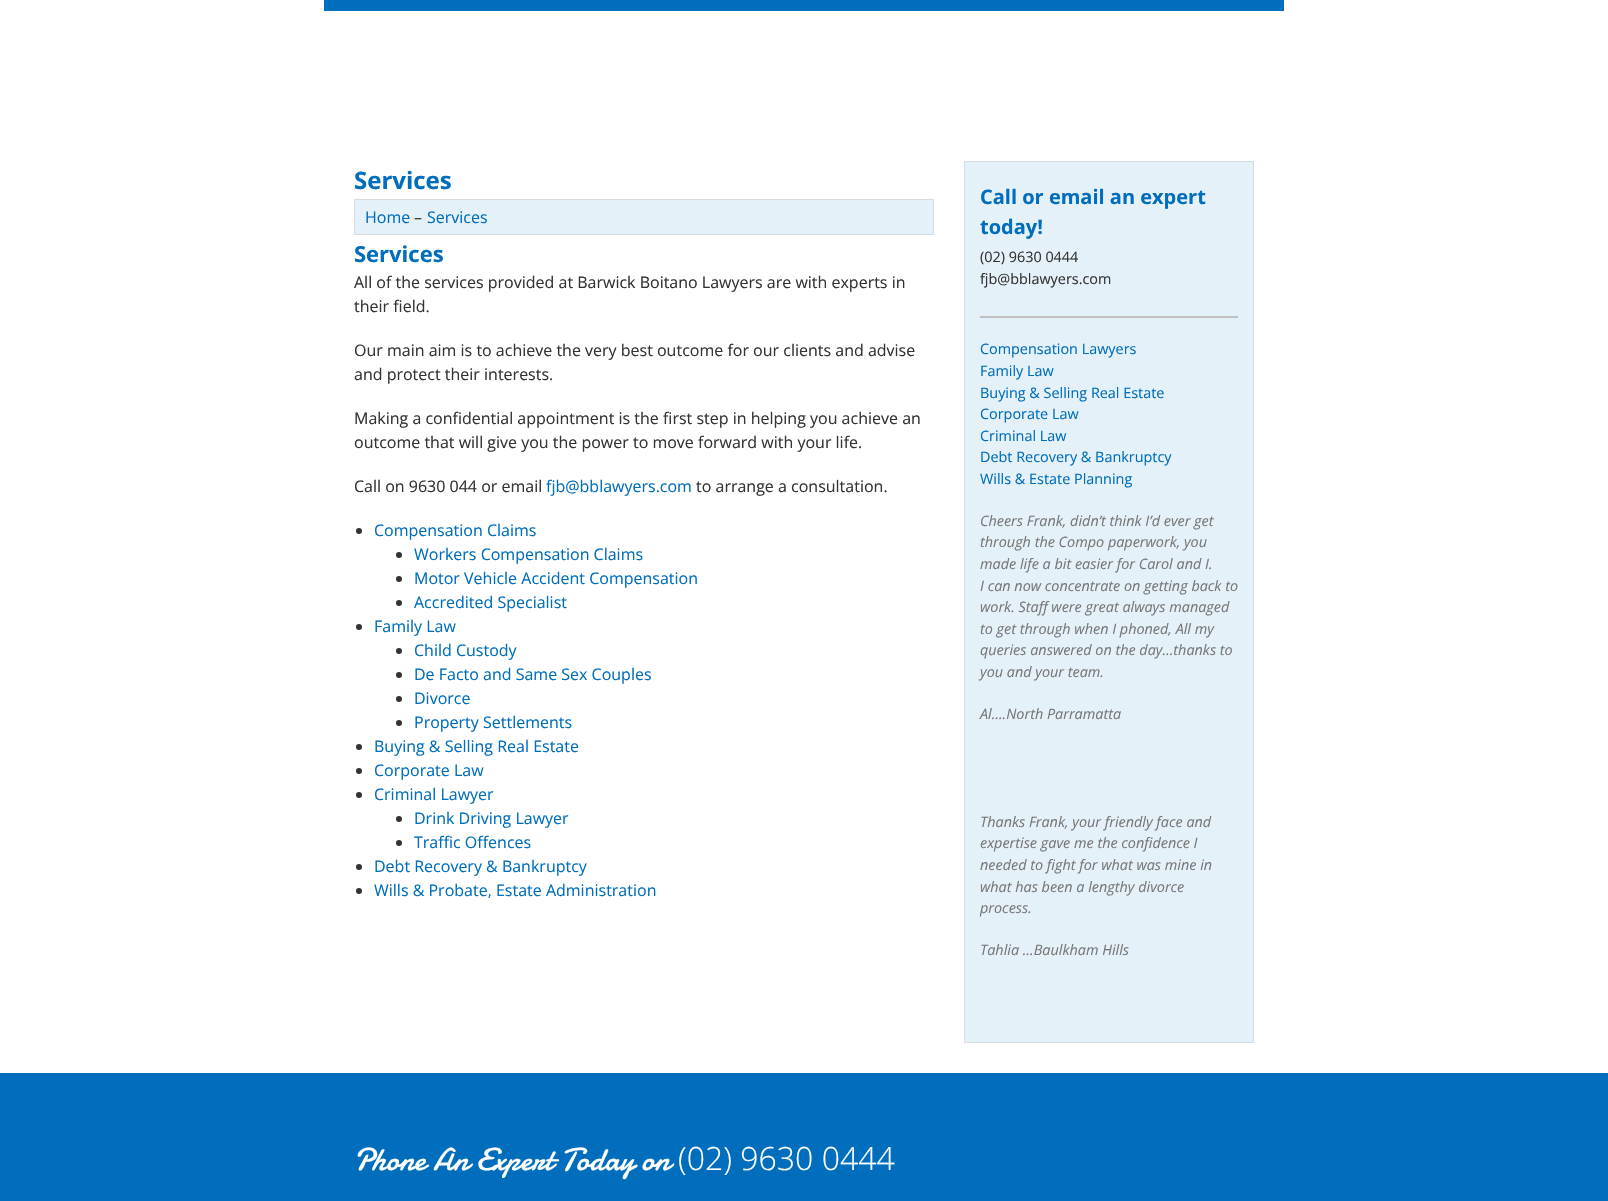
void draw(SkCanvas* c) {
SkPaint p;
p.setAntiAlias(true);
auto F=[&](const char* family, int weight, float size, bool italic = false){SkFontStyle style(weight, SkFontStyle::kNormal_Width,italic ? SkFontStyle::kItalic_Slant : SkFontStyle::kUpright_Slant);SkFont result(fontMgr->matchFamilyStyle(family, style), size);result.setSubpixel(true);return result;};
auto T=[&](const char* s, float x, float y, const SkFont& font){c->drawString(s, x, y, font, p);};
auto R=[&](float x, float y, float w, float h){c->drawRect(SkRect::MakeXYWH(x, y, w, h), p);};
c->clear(0xffffffff);
p.setColor(0xff006ebc);
R(324,0,960,11);
auto f1 = F("Open Sans",700,24);
T("Services",354,189,f1);
p.setColor(0xffe5f1f8);
c->drawRect(SkRect::MakeXYWH(354.5,199.5,579,35),p);
p.setStroke(true);
p.setStrokeWidth(1);
p.setColor(0xffd6dde2);
c->drawRect(SkRect::MakeXYWH(354.5,199.5,579,35),p);
auto f2 = F("Open Sans",400,16);
p.setStroke(false);
p.setColor(0xff006ebc);
T("Home",365,223,f2);
p.setColor(0xff333333);
T("–",414,223,f2);
p.setColor(0xff006ebc);
T("Services",427,223,f2);
auto f3 = F("Open Sans",700,22);
T("Services",354,262,f3);
p.setColor(0xff333333);
T("All of the services provided at Barwick Boitano Lawyers are with experts in",354,288,f2);
T("their field.",354,312,f2);
T("Our main aim is to achieve the very best outcome for our clients and advise",354,356,f2);
T("and protect their interests.",354,380,f2);
T("Making a confidential appointment is the first step in helping you achieve an",354,424,f2);
T("outcome that will give you the power to move forward with your life.",354,448,f2);
T("Call on 9630 044 or email",354,492,f2);
p.setColor(0xff006ebc);
T("fjb@bblawyers.com",546,492,f2);
p.setColor(0xff333333);
T("to arrange a consultation.",696,492,f2);
c->drawCircle(359,531,3,p);
p.setColor(0xff006ebc);
T("Compensation Claims",374,536,f2);
p.setColor(0xff333333);
c->drawCircle(399,555,3,p);
p.setColor(0xff006ebc);
T("Workers Compensation Claims",414,560,f2);
p.setColor(0xff333333);
c->drawCircle(399,579,3,p);
p.setColor(0xff006ebc);
T("Motor Vehicle Accident Compensation",414,584,f2);
p.setColor(0xff333333);
c->drawCircle(399,603,3,p);
p.setColor(0xff006ebc);
T("Accredited Specialist",414,608,f2);
p.setColor(0xff333333);
c->drawCircle(359,627,3,p);
p.setColor(0xff006ebc);
T("Family Law",374,632,f2);
p.setColor(0xff333333);
c->drawCircle(399,651,3,p);
p.setColor(0xff006ebc);
T("Child Custody",414,656,f2);
p.setColor(0xff333333);
c->drawCircle(399,675,3,p);
p.setColor(0xff006ebc);
T("De Facto and Same Sex Couples",414,680,f2);
p.setColor(0xff333333);
c->drawCircle(399,699,3,p);
p.setColor(0xff006ebc);
T("Divorce",414,704,f2);
p.setColor(0xff333333);
c->drawCircle(399,723,3,p);
p.setColor(0xff006ebc);
T("Property Settlements",414,728,f2);
p.setColor(0xff333333);
c->drawCircle(359,747,3,p);
p.setColor(0xff006ebc);
T("Buying & Selling Real Estate",374,752,f2);
p.setColor(0xff333333);
c->drawCircle(359,771,3,p);
p.setColor(0xff006ebc);
T("Corporate Law",374,776,f2);
p.setColor(0xff333333);
c->drawCircle(359,795,3,p);
p.setColor(0xff006ebc);
T("Criminal Lawyer",374,800,f2);
p.setColor(0xff333333);
c->drawCircle(399,819,3,p);
p.setColor(0xff006ebc);
T("Drink Driving Lawyer",414,824,f2);
p.setColor(0xff333333);
c->drawCircle(399,843,3,p);
p.setColor(0xff006ebc);
T("Traffic Offences",414,848,f2);
p.setColor(0xff333333);
c->drawCircle(359,867,3,p);
p.setColor(0xff006ebc);
T("Debt Recovery & Bankruptcy",374,872,f2);
p.setColor(0xff333333);
c->drawCircle(359,891,3,p);
p.setColor(0xff006ebc);
T("Wills & Probate, Estate Administration",374,896,f2);
p.setColor(0xffe5f1f8);
c->drawRect(SkRect::MakeXYWH(964.5,161.5,289,881),p);
p.setStroke(true);
p.setColor(0xffd6dde2);
c->drawRect(SkRect::MakeXYWH(964.5,161.5,289,881),p);
auto f4 = F("Open Sans",700,20);
p.setStroke(false);
p.setColor(0xff006ebc);
T("Call or email an expert",980,204,f4);
T("today!",980,234,f4);
auto f5 = F("Open Sans",400,14.4);
p.setColor(0xff333333);
T("(02) 9630 0444",980,262,f5);
T("fjb@bblawyers.com",980,284,f5);
p.setColor(0xffc0c0c0);
R(980,316,258,2);
p.setColor(0xff006ebc);
T("Compensation Lawyers",980,354,f5);
T("Family Law",980,376,f5);
T("Buying & Selling Real Estate",980,398,f5);
T("Corporate Law",980,419,f5);
T("Criminal Law",980,441,f5);
T("Debt Recovery & Bankruptcy",980,462,f5);
T("Wills & Estate Planning",980,484,f5);
auto f6 = F("Open Sans",400,14.4,true);
p.setColor(0xff777777);
T("Cheers Frank, didn’t think I’d ever get",980,526,f6);
T("through the Compo paperwork, you",980,547,f6);
T("made life a bit easier for Carol and I.",980,569,f6);
T("I can now concentrate on getting back to",980,591,f6);
T("work. Staff were great always managed",980,612,f6);
T("to get through when I phoned, All my",980,634,f6);
T("queries answered on the day…thanks to",980,655,f6);
T("you and your team.",980,677,f6);
T("Al….North Parramatta",980,719,f6);
T("Thanks Frank, your friendly face and",980,827,f6);
T("expertise gave me the confidence I",980,848,f6);
T("needed to fight for what was mine in",980,870,f6);
T("what has been a lengthy divorce",980,892,f6);
T("process.",980,913,f6);
T("Tahlia …Baulkham Hills",980,955,f6);
p.setColor(0xff006ebc);
R(0,1073,1608,128);
auto f7 = F("Damion",400,32);
p.setColor(0xffffffff);
T("Phone An Expert Today on",354,1170,f7);
auto f8 = F("Open Sans",300,32);
T("(02) 9630 0444",678,1170,f8);
}
